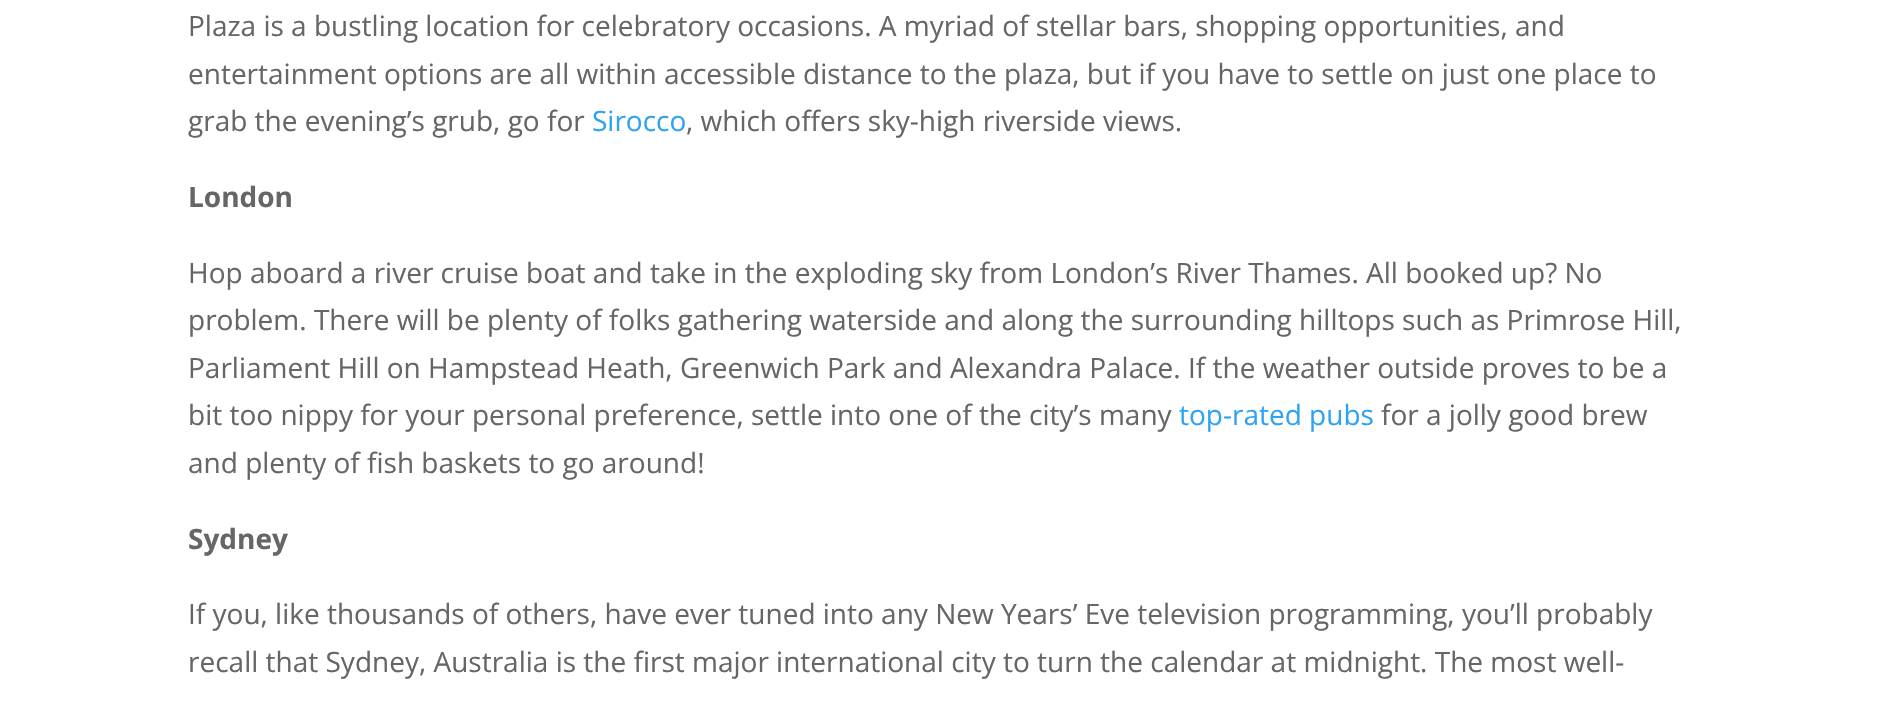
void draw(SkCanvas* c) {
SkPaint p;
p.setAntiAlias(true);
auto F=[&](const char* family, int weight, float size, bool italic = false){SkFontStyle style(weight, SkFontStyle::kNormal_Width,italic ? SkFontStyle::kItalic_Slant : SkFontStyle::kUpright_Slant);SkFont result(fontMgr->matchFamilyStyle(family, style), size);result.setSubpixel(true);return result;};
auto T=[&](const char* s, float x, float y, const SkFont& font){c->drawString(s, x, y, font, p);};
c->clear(0xffffffff);
auto f1 = F("Open Sans",400,28);
p.setColor(0xff666666);
T("Plaza is a bustling location for celebratory occasions. A myriad of stellar bars, shopping opportunities, and",188,36,f1);
T("entertainment options are all within accessible distance to the plaza, but if you have to settle on just one place to",188,84,f1);
T("grab the evening’s grub, go for",188,131,f1);
p.setColor(0xff2ea3f2);
T("Sirocco",592,131,f1);
p.setColor(0xff666666);
T(", which offers sky-high riverside views.",686,131,f1);
auto f2 = F("Open Sans",700,28);
T("London",188,207,f2);
T("Hop aboard a river cruise boat and take in the exploding sky from London’s River Thames. All booked up? No",188,283,f1);
T("problem. There will be plenty of folks gathering waterside and along the surrounding hilltops such as Primrose Hill,",188,330,f1);
T("Parliament Hill on Hampstead Heath, Greenwich Park and Alexandra Palace. If the weather outside proves to be a",188,378,f1);
T("bit too nippy for your personal preference, settle into one of the city’s many",188,425,f1);
p.setColor(0xff2ea3f2);
T("top-rated pubs",1179,425,f1);
p.setColor(0xff666666);
T("for a jolly good brew",1381,425,f1);
T("and plenty of fish baskets to go around!",188,473,f1);
T("Sydney",188,549,f2);
T("If you, like thousands of others, have ever tuned into any New Years’ Eve television programming, you’ll probably",188,624,f1);
T("recall that Sydney, Australia is the first major international city to turn the calendar at midnight. The most well-",188,672,f1);
}
